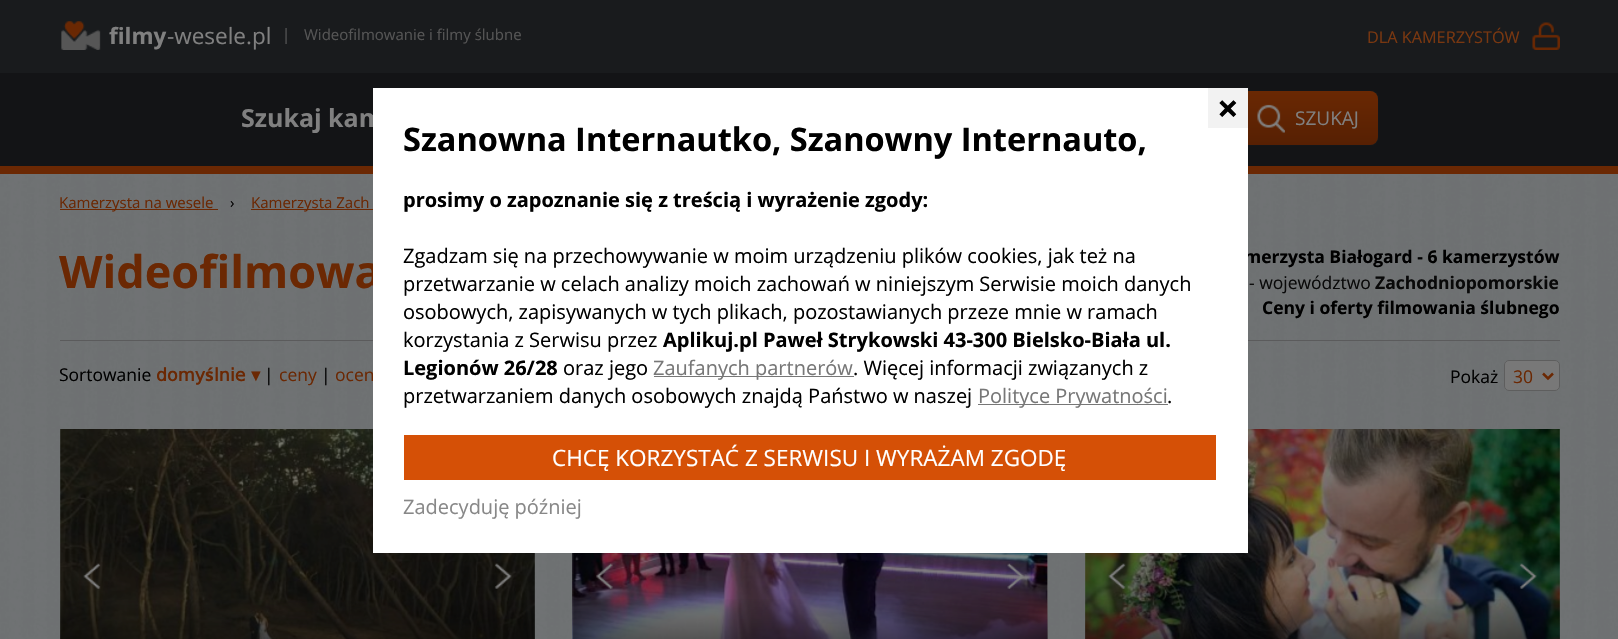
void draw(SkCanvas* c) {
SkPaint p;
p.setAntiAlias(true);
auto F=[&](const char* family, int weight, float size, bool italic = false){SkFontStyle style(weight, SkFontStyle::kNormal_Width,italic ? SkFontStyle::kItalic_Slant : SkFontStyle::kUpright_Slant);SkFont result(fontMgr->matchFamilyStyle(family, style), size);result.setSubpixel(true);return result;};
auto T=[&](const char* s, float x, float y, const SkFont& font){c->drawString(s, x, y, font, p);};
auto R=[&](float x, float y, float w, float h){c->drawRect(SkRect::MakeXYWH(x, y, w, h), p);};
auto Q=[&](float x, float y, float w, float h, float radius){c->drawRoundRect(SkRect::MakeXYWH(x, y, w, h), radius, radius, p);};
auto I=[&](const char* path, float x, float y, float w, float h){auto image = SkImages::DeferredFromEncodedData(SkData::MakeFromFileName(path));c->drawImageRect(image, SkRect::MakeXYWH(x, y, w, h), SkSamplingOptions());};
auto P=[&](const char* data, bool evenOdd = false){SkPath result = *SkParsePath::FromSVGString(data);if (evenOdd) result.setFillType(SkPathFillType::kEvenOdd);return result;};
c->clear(0xffffffff);
I("1.png",0,174,1618,465);
p.setColor(0xff191b1d);
R(0,0,1618,73);
I("2.png",61,21,40,29);
auto f1 = F("Open Sans",700,22.5);
p.setColor(0xff808080);
T("filmy",109,44,f1);
auto f2 = F("Open Sans",400,22.5);
T("-wesele.pl",167,44,f2);
p.setColor(0xff424344);
R(286,28,1,16);
p.setColor(0xff3b3c3d);
R(285,28,1,16);
auto f3 = F("Open Sans",400,15);
p.setColor(0xff555555);
T("Wideofilmowanie i filmy ślubne",304,40,f3);
I("3.png",1532,22,28,28);
auto f4 = F("Open Sans",400,16.25);
p.setColor(0xff793710);
T("DLA KAMERZYSTÓW",1367,43,f4);
p.setColor(0xff131416);
R(0,73,1618,93);
auto f5 = F("Open Sans",700,25);
p.setColor(0xff808080);
T("Szukaj kam",241,127,f5);
p.setColor(0xff171f23);
p.setMaskFilter(SkMaskFilter::MakeBlur(kNormal_SkBlurStyle, .5));
c->drawRoundRect(SkRect::MakeXYWH(703,91,675,54),8,8,p);
p.setMaskFilter(nullptr);
{
const SkColor colors[] = {0xff6a2803,0xff562003};
const float stops[] = {0,1};
const SkPoint ends[] = {{1040,91}, {1040,145}};
p.setShader(SkGradientShader::MakeLinear(ends, colors, stops, 2, SkTileMode::kClamp));
p.setAlpha(255);
}
Q(703,91,675,54,8);
p.setShader(nullptr);
p.setColor(0xff6b2803);
R(0,166,1618,8);
auto f6 = F("Open Sans",700,45);
T("Wideofilmowa",59,288,f6);
auto f7 = F("Open Sans",700,17.5);
p.setColor(0xff000000);
T("merzysta Białogard - 6 kamerzystów",1244,263,f7);
p.setColor(0xff5b5b5c);
R(60,340,1500,1);
auto f8 = F("Open Sans",400,17.5);
p.setColor(0xff6b2803);
T("ocen",335,381,f8);
I("5.png",60,429,475,210);
I("11.png",1085,429,475,210);
p.setColor(0xffffffff);
R(373,88,875,465);
p.setColor(0xfff2f2f2);
R(1208,88,40,40);
auto f9 = F("Open Sans",700,38);
p.setColor(0xff000000);
T("×",1217,122,f9);
auto f10 = F("Open Sans",700,32.5);
T("Szanowna Internautko, Szanowny Internauto,",403,151,f10);
auto f11 = F("Open Sans",700,20);
T("prosimy o zapoznanie się z treścią i wyrażenie zgody:",403,207,f11);
auto f12 = F("Open Sans",400,20);
T("Zgadzam się na przechowywanie w moim urządzeniu plików cookies, jak też na",403,263,f12);
T("przetwarzanie w celach analizy moich zachowań w niniejszym Serwisie moich danych",403,291,f12);
T("osobowych, zapisywanych w tych plikach, pozostawianych przeze mnie w ramach",403,319,f12);
T("korzystania z Serwisu przez",403,347,f12);
T("Aplikuj.pl Paweł Strykowski 43-300 Bielsko-Biała ul.",663,347,f11);
T("Legionów 26/28",403,375,f11);
T("oraz jego",563,375,f12);
p.setColor(0xff777777);
R(654,376,200,1);
T("Zaufanych partnerów",653,375,f12);
p.setColor(0xff000000);
T(". Więcej informacji związanych z",853,375,f12);
T("przetwarzaniem danych osobowych znajdą Państwo w naszej",403,403,f12);
p.setColor(0xff777777);
R(978,404,190,1);
T("Polityce Prywatności",978,403,f12);
p.setColor(0xff000000);
T(".",1167,403,f12);
p.setColor(0xffd55006);
R(404,435,812,45);
p.setColor(0xffffffff);
T("CHCĘ KORZYSTAĆ Z SERWISU I WYRAŻAM ZGODĘ",552,466,f2);
p.setColor(0xff888888);
T("Zadecyduję później",403,514,f12);
I("4.png",1257,104,28,29);
auto f13 = F("Open Sans",400,19);
p.setColor(0xff808080);
T("SZUKAJ",1295,125,f13);
p.setColor(0xff6b2803);
R(60,209,158,1);
T("Kamerzysta na wesele",59,208,f3);
p.setColor(0xff000000);
T("›",230,208,f3);
p.setColor(0xff6b2803);
R(251,209,122,1);
T("Kamerzysta Zach",251,208,f3);
p.setColor(0xff090909);
T("- województwo",1249,289,f8);
T("Zachodniopomorskie",1375,289,f7);
p.setColor(0xff000000);
T("Ceny i oferty filmowania ślubnego",1262,314,f7);
T("Sortowanie",59,381,f8);
auto f14 = F("DejaVu Sans",700,17.5);
p.setColor(0xff6b2803);
T("domy",156,381,f14);
T("ś",205,381,f7);
T("lnie ▾",214,381,f14);
p.setColor(0xff000000);
T("|",264,381,f8);
p.setColor(0xff6b2803);
T("ceny",279,381,f8);
p.setColor(0xff000000);
T("|",321,381,f8);
T("Pokaż",1450,383,f8);
p.setColor(0xff787878);
c->drawRoundRect(SkRect::MakeXYWH(1504.5,360.5,55,30),4.5,4.5,p);
p.setStroke(true);
p.setStrokeWidth(1);
p.setColor(0xff5e5e5e);
c->drawRoundRect(SkRect::MakeXYWH(1504.5,360.5,55,30),4.5,4.5,p);
p.setStrokeWidth(2.5);
p.setColor(0xff6b2803);
c->drawPath(P("M1543 373.5l5 5l5-5"),p);
p.setStroke(false);
T("30",1513,383,f8);
I("6.png",83,563,18,26);
I("7.png",494,563,18,26);
{
const SkColor colors[] = {0x00000000,0xcc000000};
const float stops[] = {.62,1};
const SkPoint ends[] = {{298,429}, {298,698}};
p.setShader(SkGradientShader::MakeLinear(ends, colors, stops, 2, SkTileMode::kClamp));
p.setAlpha(255);
}
R(60,601,475,38);
p.setShader(nullptr);
p.setColor(0xff7d7d7d);
R(573,553,475,86);
I("8.png",572,553,476,86);
I("9.png",596,563,17,26);
I("10.png",1007,563,17,26);
{
const SkColor colors[] = {0x00000000,0xcc000000};
const float stops[] = {.62,1};
const SkPoint ends[] = {{810,429}, {810,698}};
p.setShader(SkGradientShader::MakeLinear(ends, colors, stops, 2, SkTileMode::kClamp));
p.setAlpha(255);
}
R(573,599,475,40);
I("12.png",1108,563,18,26);
I("13.png",1519,563,18,26);
{
const SkColor colors[] = {0x00000000,0xcc000000};
const float stops[] = {.62,1};
const SkPoint ends[] = {{1323,429}, {1323,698}};
p.setShader(SkGradientShader::MakeLinear(ends, colors, stops, 2, SkTileMode::kClamp));
p.setAlpha(255);
}
R(1085,599,475,40);
}
